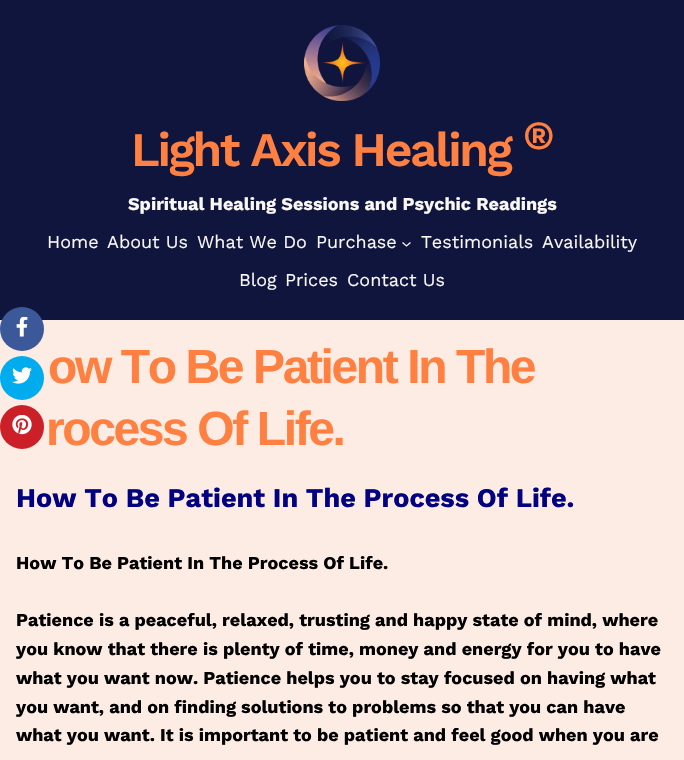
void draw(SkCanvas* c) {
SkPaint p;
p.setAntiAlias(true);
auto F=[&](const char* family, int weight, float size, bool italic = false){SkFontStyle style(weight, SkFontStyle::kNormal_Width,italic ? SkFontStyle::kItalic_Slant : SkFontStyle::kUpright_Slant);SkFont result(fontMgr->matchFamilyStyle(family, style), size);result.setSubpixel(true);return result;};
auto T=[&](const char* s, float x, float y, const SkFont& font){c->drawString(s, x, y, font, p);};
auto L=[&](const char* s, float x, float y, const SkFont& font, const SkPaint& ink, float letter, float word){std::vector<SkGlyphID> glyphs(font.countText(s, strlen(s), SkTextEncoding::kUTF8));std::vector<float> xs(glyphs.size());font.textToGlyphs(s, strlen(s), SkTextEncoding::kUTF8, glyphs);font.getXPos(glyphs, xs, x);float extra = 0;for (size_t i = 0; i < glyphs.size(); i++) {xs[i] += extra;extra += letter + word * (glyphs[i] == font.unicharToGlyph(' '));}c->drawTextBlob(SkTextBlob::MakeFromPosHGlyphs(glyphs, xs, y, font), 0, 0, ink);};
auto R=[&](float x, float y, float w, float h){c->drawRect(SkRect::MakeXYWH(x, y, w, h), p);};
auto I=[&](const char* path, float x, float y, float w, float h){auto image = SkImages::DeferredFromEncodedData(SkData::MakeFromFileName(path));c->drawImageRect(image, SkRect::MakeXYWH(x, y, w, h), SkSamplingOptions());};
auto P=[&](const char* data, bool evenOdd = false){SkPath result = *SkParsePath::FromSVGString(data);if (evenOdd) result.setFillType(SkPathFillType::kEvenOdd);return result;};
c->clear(0xfffdece4);
p.setColor(0xff0f153d);
R(0,0,684,320);
I("1.png",304,25,76,76);
auto f1 = F("Work Sans",600,48);
p.setColor(0xffff8040);
L("Light Axis Healing",131,166,f1,p,-2.4,0);
auto f2 = F("Work Sans",600,40);
L("®",523,149,f2,p,-2.4,0);
auto f3 = F("Work Sans",700,18);
p.setColor(0xfff9f8f5);
T("Spiritual Healing Sessions and Psychic Readings",128,210,f3);
auto f4 = F("Work Sans",400,18);
T("Home",47,248,f4);
T("About Us",107,248,f4);
T("What We Do",197,248,f4);
T("Purchase",316,248,f4);
p.setStroke(true);
p.setStrokeWidth(1.3);
c->drawPath(P("M402.5 242.5l4 3.5l4-3.5"),p);
p.setStroke(false);
T("Testimonials",421,248,f4);
T("Availability",542,248,f4);
T("Blog",239,286,f4);
T("Prices",285,286,f4);
T("Contact Us",347,286,f4);
auto f5 = F("Liberation Sans",700,48);
p.setColor(0xffff8040);
L("ow To Be Patient In The",48,383,f5,p,-2.4,0);
L("rocess Of Life.",46,445,f5,p,-2.4,0);
auto f6 = F("Work Sans",700,27);
p.setColor(0xff000080);
T("How To Be Patient In The Process Of Life.",16,507,f6);
p.setColor(0xff000000);
T("How To Be Patient In The Process Of Life.",16,569,f3);
T("Patience is a peaceful, relaxed, trusting and happy state of mind, where",16,626,f3);
T("you know that there is plenty of time, money and energy for you to have",16,655,f3);
T("what you want now. Patience helps you to stay focused on having what",16,684,f3);
T("you want, and on finding solutions to problems so that you can have",16,713,f3);
T("what you want. It is important to be patient and feel good when you are",16,741,f3);
p.setColor(0xff3b5998);
c->drawCircle(22,329,22,p);
I("2.png",16,317,12,20);
p.setColor(0xff00aced);
c->drawCircle(22,378,22,p);
I("3.png",12,367,20,17);
p.setColor(0xffcb2027);
c->drawCircle(22,427,22,p);
I("4.png",12,415,20,20);
}
